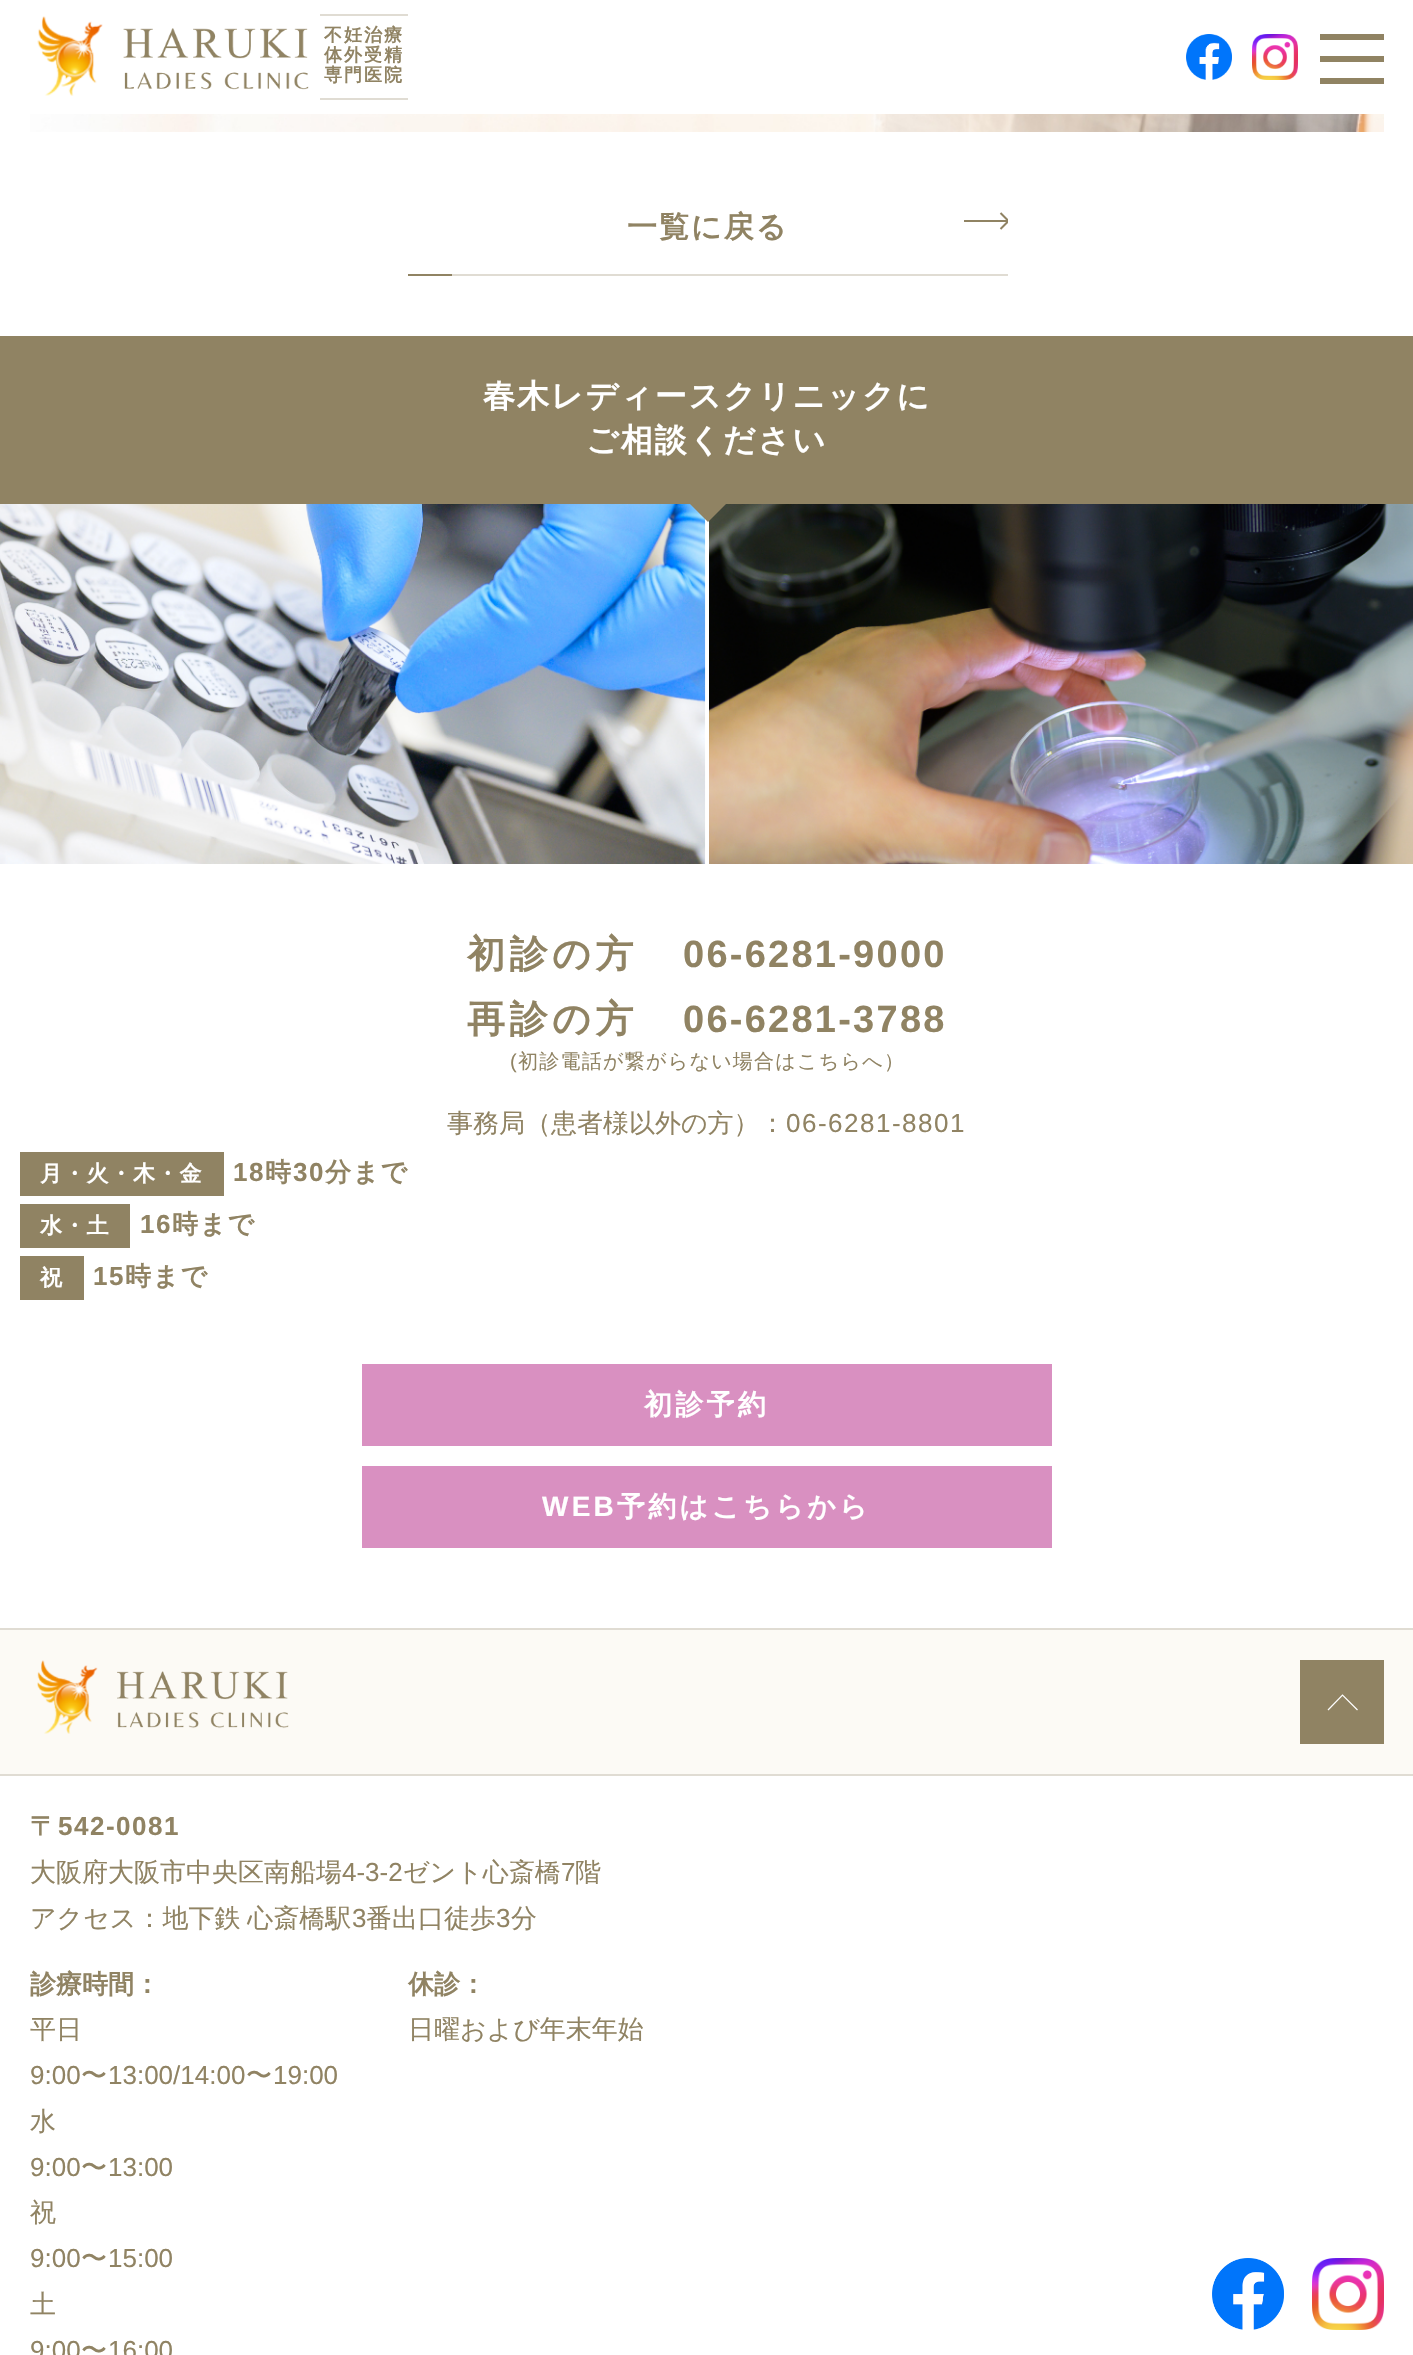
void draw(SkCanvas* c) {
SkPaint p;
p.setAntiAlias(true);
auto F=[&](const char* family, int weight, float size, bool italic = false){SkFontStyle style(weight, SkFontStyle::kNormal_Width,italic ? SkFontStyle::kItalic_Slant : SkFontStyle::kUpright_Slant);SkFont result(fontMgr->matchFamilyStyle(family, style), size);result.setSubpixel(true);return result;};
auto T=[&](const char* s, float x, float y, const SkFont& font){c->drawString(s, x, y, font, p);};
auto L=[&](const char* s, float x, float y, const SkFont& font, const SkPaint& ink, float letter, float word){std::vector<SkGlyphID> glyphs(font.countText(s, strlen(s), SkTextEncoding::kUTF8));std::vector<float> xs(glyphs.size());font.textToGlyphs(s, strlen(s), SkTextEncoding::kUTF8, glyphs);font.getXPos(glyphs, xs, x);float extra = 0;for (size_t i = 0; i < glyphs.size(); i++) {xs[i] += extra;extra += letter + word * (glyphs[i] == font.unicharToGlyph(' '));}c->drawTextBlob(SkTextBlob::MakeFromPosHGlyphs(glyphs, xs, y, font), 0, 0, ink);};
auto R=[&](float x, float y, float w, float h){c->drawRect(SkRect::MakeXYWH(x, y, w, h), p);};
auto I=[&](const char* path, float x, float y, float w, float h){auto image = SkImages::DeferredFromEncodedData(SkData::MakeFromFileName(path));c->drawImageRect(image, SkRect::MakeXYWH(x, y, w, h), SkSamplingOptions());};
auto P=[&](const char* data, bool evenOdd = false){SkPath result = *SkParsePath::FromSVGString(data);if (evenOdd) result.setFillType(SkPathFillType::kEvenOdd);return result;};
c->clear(0xffffffff);
I("1.png",37,16,272,80);
p.setColor(0xffe0dcd3);
R(320,14,88,2);
R(320,98,88,2);
auto f1 = F("WenQuanYi Zen Hei",700,18);
p.setColor(0xff908363);
L("不妊治療",324,41,f1,p,2,0);
L("体外受精",324,61,f1,p,2,0);
L("専門医院",324,81,f1,p,2,0);
I("2.png",1186,34,46,46);
I("3.png",1252,34,46,46);
R(1320,56,64,6);
R(1320,34,64,6);
R(1320,78,64,6);
I("4.png",30,114,1354,18);
p.setColor(0xffe0dcd3);
R(452,274,556,2);
auto f2 = F("WenQuanYi Zen Hei",700,30);
p.setColor(0xff908363);
L("一覧に戻る",627,237,f2,p,2,0);
R(964,220,44,2);
c->save();
c->clipRect(SkRect::MakeXYWH(964,212,44,18));
p.setStroke(true);
p.setStrokeWidth(2);
c->drawPath(P("M1000.5 213l8 8l-8 8"),p);
c->restore();
p.setStroke(false);
R(408,274,44,2);
R(0,336,1413,168);
auto f3 = F("WenQuanYi Zen Hei",700,32);
p.setColor(0xffffffff);
L("春木レディースクリニックに",483,407,f3,p,1.9,0);
L("ご相談ください",586,451,f3,p,1.9,0);
I("5.png",0,504,1413,360);
p.setColor(0xff908363);
c->drawPath(P("M688 502h40l-20 20z"),p);
auto f4 = F("WenQuanYi Zen Hei",700,38);
L("初診の方",467,967,f4,p,4.5,0);
auto f5 = F("Liberation Sans",700,38);
L("06-6281-9000",683,967,f5,p,2.25,0);
L("再診の方",467,1032,f4,p,4.5,0);
L("06-6281-3788",683,1032,f5,p,2.25,0);
auto f6 = F("Liberation Sans",400,20);
L("(",510,1068,f6,p,1.25,0);
auto f7 = F("WenQuanYi Zen Hei",500,20);
L("初診電話が繋がらない場合はこちらへ）",518,1068,f7,p,1.25,0);
auto f8 = F("WenQuanYi Zen Hei",500,26);
T("事務局（患者様以外の方）：",447,1132,f8);
auto f9 = F("Liberation Sans",400,26);
L("06-6281-8801",786,1132,f9,p,1.5,0);
R(20,1152,204,44);
auto f10 = F("WenQuanYi Zen Hei",700,22);
p.setColor(0xffffffff);
L("月・火・木・金",40,1181,f10,p,1.25,0);
auto f11 = F("Liberation Sans",700,26);
p.setColor(0xff908363);
L("18",233,1181,f11,p,1.5,0);
auto f12 = F("WenQuanYi Zen Hei",700,26);
L("時",265,1181,f12,p,1.5,0);
L("30",293,1181,f11,p,1.5,0);
L("分まで",325,1181,f12,p,1.5,0);
R(20,1204,110,44);
p.setColor(0xffffffff);
L("水・土",40,1233,f10,p,1.25,0);
p.setColor(0xff908363);
L("16",140,1233,f11,p,1.5,0);
L("時まで",172,1233,f12,p,1.5,0);
R(20,1256,64,44);
p.setColor(0xffffffff);
L("祝",40,1285,f10,p,1.25,0);
p.setColor(0xff908363);
L("15",93,1285,f11,p,1.5,0);
L("時まで",125,1285,f12,p,1.5,0);
p.setColor(0xffd990c1);
R(362,1364,690,82);
auto f13 = F("WenQuanYi Zen Hei",700,28);
p.setColor(0xffffffff);
L("初診予約",644,1414,f13,p,3.25,0);
p.setColor(0xffd990c1);
R(362,1466,690,82);
auto f14 = F("Liberation Sans",700,28);
p.setColor(0xffffffff);
L("WEB",542,1516,f14,p,3.25,0);
L("予約はこちらから",617,1516,f13,p,3.25,0);
p.setColor(0xfffcfaf5);
R(0,1630,1413,144);
p.setColor(0xffe0dcd3);
R(0,1628,1413,2);
R(0,1774,1413,2);
I("6.png",37,1660,252,74);
p.setColor(0xff908363);
R(1300,1660,84,84);
p.setStroke(true);
p.setStrokeWidth(1.2);
p.setColor(0xffffffff);
c->drawPath(P("M1328 1710l14.5-15l15 15"),p);
p.setStroke(false);
p.setColor(0xff908363);
L("〒",30,1835,f12,p,1.5,0);
L("542-0081",58,1835,f11,p,1.5,0);
T("大阪府大阪市中央区南船場",30,1881,f8);
T("4-3-2",342,1881,f9);
T("ゼント心斎橋",403,1881,f8);
T("7",561,1881,f9);
T("階",575,1881,f8);
L("アクセス：地下鉄 心斎橋駅",30,1927,f8,p,0,-1);
T("3",352,1927,f9);
T("番出口徒歩",366,1927,f8);
T("3",496,1927,f9);
T("分",511,1927,f8);
T("診療時間：",30,1993,f12);
T("平日",30,2038,f8);
T("9:00",30,2084,f9);
L("〜",81,2084,f8,p,1.5,0);
T("13:00/14:00",108,2084,f9);
L("〜",246,2084,f8,p,1.5,0);
T("19:00",273,2084,f9);
T("水",30,2130,f8);
T("9:00",30,2176,f9);
L("〜",81,2176,f8,p,1.5,0);
T("13:00",108,2176,f9);
T("祝",30,2221,f8);
T("9:00",30,2267,f9);
L("〜",81,2267,f8,p,1.5,0);
T("15:00",108,2267,f9);
T("土",30,2313,f8);
T("9:00",30,2359,f9);
L("〜",81,2359,f8,p,1.5,0);
T("16:00",108,2359,f9);
T("休診：",408,1993,f12);
T("日曜および年末年始",408,2038,f8);
I("7.png",1212,2258,72,72);
I("8.png",1312,2258,72,72);
}
